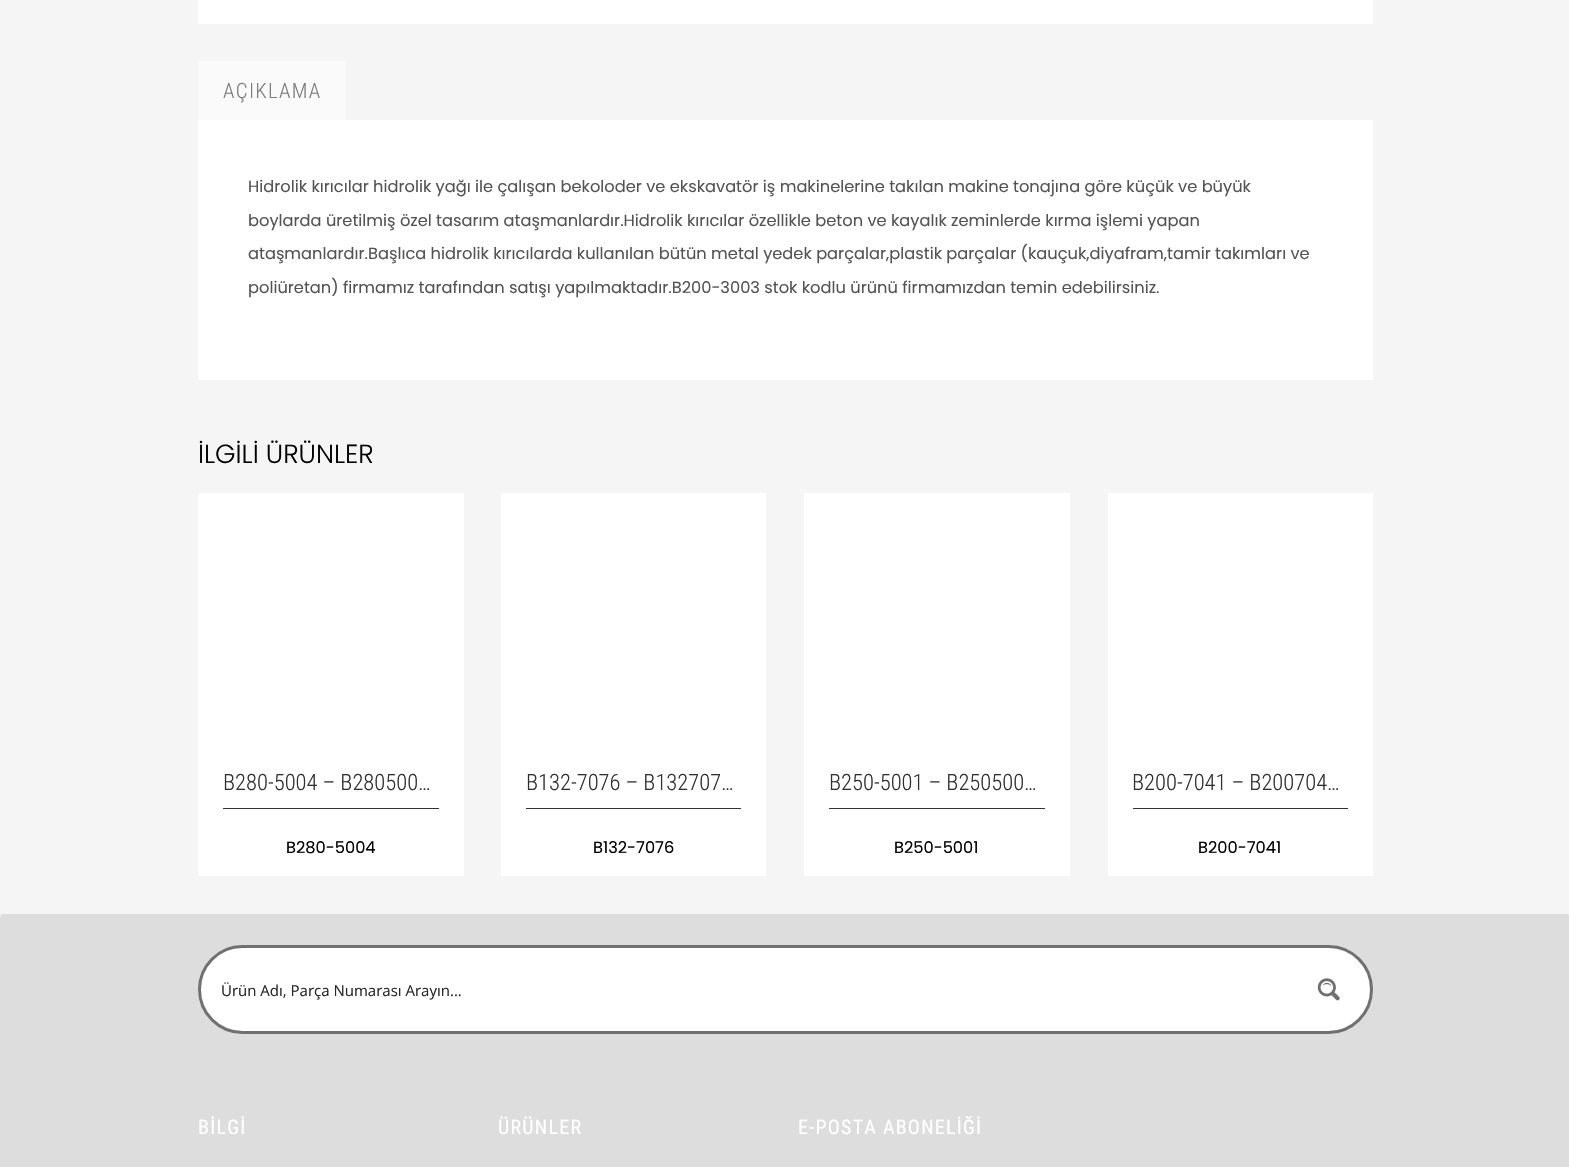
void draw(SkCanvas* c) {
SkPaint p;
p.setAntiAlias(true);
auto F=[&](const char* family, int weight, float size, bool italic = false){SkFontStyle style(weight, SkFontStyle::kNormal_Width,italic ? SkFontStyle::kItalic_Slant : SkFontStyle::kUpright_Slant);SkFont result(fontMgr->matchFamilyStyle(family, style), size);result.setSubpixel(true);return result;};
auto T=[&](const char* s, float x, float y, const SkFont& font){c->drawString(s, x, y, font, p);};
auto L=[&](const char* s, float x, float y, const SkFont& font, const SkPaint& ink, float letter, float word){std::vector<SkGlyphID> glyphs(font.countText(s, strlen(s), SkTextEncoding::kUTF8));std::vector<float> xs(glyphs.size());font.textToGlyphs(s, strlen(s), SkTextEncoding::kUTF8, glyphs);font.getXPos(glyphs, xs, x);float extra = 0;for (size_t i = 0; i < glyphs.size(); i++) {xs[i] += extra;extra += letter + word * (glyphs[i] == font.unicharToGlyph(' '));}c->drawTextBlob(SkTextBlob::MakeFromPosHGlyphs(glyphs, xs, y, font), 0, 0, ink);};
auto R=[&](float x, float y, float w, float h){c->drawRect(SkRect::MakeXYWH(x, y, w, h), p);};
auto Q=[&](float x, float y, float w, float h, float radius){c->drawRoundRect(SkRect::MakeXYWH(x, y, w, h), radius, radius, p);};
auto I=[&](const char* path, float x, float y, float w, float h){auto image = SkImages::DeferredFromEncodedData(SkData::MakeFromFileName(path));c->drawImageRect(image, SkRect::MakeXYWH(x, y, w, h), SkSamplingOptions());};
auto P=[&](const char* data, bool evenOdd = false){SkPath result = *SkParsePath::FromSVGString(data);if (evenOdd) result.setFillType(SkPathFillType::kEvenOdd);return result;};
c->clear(0xfff5f5f5);
p.setColor(0xfffafafa);
R(198,61,148,59);
p.setColor(0xffffffff);
R(198,0,1175,24);
auto f1 = F("Roboto Condensed",300,21);
p.setColor(0xff7b7b7b);
L("AÇIKLAMA",223,98,f1,p,1.25,0);
p.setColor(0xffffffff);
R(198,120,1175,260);
auto f2 = F("Poppins",400,16.25);
p.setColor(0xff535353);
T("Hidrolik kırıcılar hidrolik yağı ile çalışan bekoloder ve ekskavatör iş makinelerine takılan makine tonajına göre küçük ve büyük",248,192,f2);
T("boylarda üretilmiş özel tasarım ataşmanlardır.Hidrolik kırıcılar özellikle beton ve kayalık zeminlerde kırma işlemi yapan",248,226,f2);
T("ataşmanlardır.Başlıca hidrolik kırıcılarda kullanılan bütün metal yedek parçalar,plastik parçalar (kauçuk,diyafram,tamir takımları ve",248,259,f2);
T("poliüretan) firmamız tarafından satışı yapılmaktadır.B200-3003 stok kodlu ürünü firmamızdan temin edebilirsiniz.",248,293,f2);
auto f3 = F("Poppins",300,26.25);
p.setColor(0xff000000);
T("İLGİLİ ÜRÜNLER",198,463,f3);
p.setColor(0xffffffff);
R(198,493,266,383);
p.setColor(0xff333333);
R(223,808,216,1);
auto f4 = F("Roboto Condensed",300,22.5);
p.setColor(0xff2f2f2f);
T("B280-5004 – B280500…",223,790,f4);
p.setColor(0xff000000);
T("B280-5004",286,853,f2);
p.setColor(0xffffffff);
R(501,493,265,383);
p.setColor(0xff333333);
R(526,808,215,1);
p.setColor(0xff2f2f2f);
T("B132-7076 – B132707…",526,790,f4);
p.setColor(0xff000000);
T("B132-7076",593,853,f2);
p.setColor(0xffffffff);
R(804,493,266,383);
p.setColor(0xff333333);
R(829,808,216,1);
p.setColor(0xff2f2f2f);
T("B250-5001 – B250500…",829,790,f4);
p.setColor(0xff000000);
T("B250-5001",894,853,f2);
p.setColor(0xffffffff);
R(1108,493,265,383);
p.setColor(0xff333333);
R(1133,808,215,1);
p.setColor(0xff2f2f2f);
T("B200-7041 – B200704…",1132,790,f4);
p.setColor(0xff000000);
T("B200-7041",1198,853,f2);
p.setColor(0xffdddddd);
Q(0,914,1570,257,4);
p.setColor(0xffffffff);
c->drawRoundRect(SkRect::MakeXYWH(199.5,946.5,1172,86),43,43,p);
p.setStroke(true);
p.setStrokeWidth(3);
p.setColor(0xff707070);
c->drawRoundRect(SkRect::MakeXYWH(199.5,946.5,1172,86),43,43,p);
auto f5 = F("Open Sans",400,15);
p.setStroke(false);
p.setColor(0xff262626);
T("Ürün Adı, Parça Numarası Arayın...",221,996,f5);
c->save();
c->clipRect(SkRect::MakeXYWH(1294,955,69,69));
p.setColor(0xa3ffffff);
c->drawPath(P("M1292 956v69h58c-6 4-14 6-22 6h-158v-83h158c10 0 18 3 25 8zm69 59c12-15 12-36 0-51z",true),p);
c->restore();
I("1.png",1317,978,23,23);
auto f6 = F("Roboto Condensed",400,20);
p.setColor(0xffffffff);
L("BİLGİ",198,1134,f6,p,1.25,0);
L("ÜRÜNLER",498,1134,f6,p,1.25,0);
L("E-POSTA ABONELİĞİ",798,1134,f6,p,1.25,0);
}
